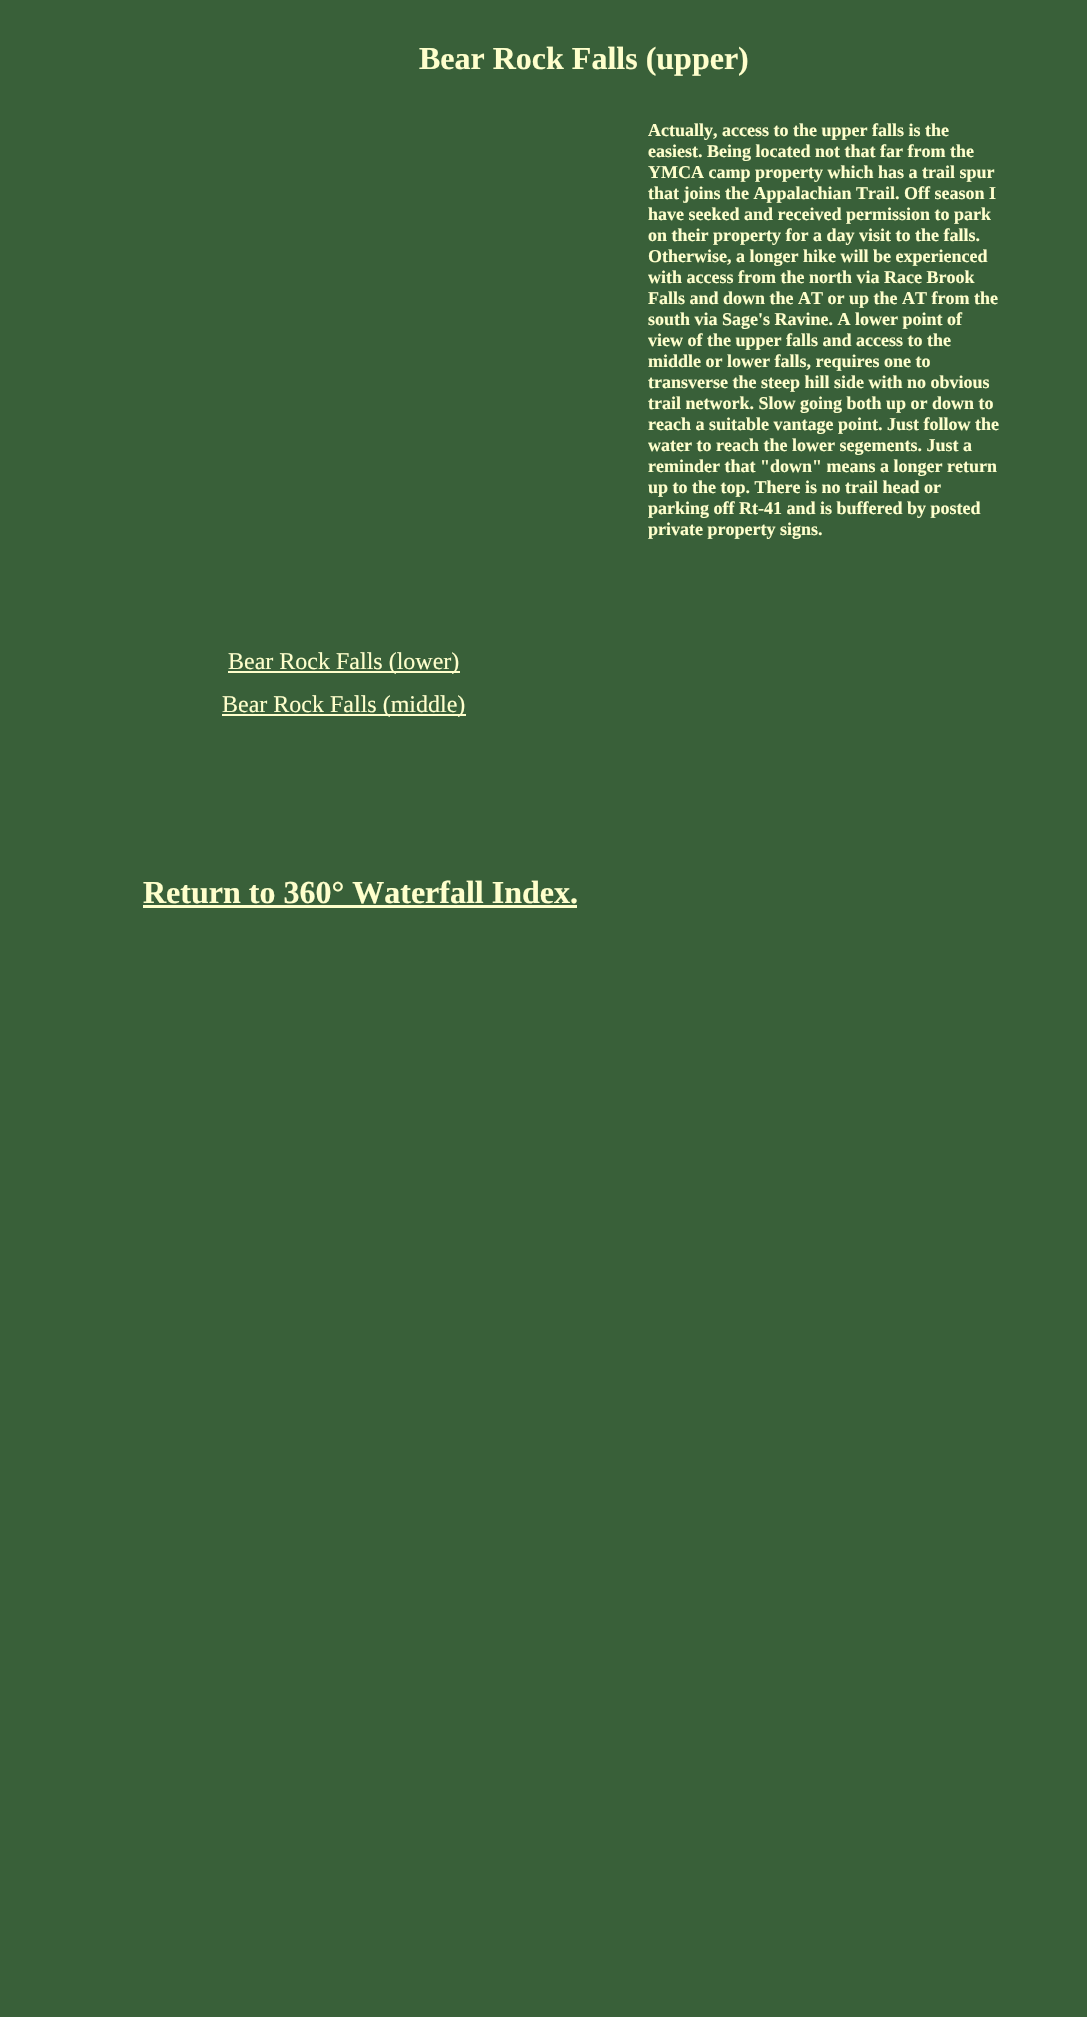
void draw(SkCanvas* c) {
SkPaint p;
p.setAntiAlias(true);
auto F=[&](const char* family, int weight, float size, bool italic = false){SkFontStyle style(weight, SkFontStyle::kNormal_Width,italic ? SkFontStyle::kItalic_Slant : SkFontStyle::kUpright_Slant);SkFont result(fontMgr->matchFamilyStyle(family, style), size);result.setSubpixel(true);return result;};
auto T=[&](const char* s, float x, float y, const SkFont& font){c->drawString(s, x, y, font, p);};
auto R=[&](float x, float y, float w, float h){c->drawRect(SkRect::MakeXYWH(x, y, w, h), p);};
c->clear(0xff396039);
auto f1 = F("Liberation Serif",700,32);
p.setColor(0xffffffcc);
T("Bear Rock Falls (upper)",419,69,f1);
auto f2 = F("Liberation Serif",700,18);
T("Actually, access to the upper falls is the",648,136,f2);
T("easiest. Being located not that far from the",648,157,f2);
T("YMCA camp property which has a trail spur",648,178,f2);
T("that joins the Appalachian Trail. Off season I",648,199,f2);
T("have seeked and received permission to park",648,220,f2);
T("on their property for a day visit to the falls.",648,241,f2);
T("Otherwise, a longer hike will be experienced",648,262,f2);
T("with access from the north via Race Brook",648,283,f2);
T("Falls and down the AT or up the AT from the",648,304,f2);
T("south via Sage's Ravine. A lower point of",648,325,f2);
T("view of the upper falls and access to the",648,346,f2);
T("middle or lower falls, requires one to",648,367,f2);
T("transverse the steep hill side with no obvious",648,388,f2);
T("trail network. Slow going both up or down to",648,409,f2);
T("reach a suitable vantage point. Just follow the",648,430,f2);
T("water to reach the lower segements. Just a",648,451,f2);
T("reminder that \"down\" means a longer return",648,472,f2);
T("up to the top. There is no trail head or",648,493,f2);
T("parking off Rt-41 and is buffered by posted",648,514,f2);
T("private property signs.",648,535,f2);
R(228,671,232,2);
auto f3 = F("Liberation Serif",400,24);
T("Bear Rock Falls (lower)",228,669,f3);
R(222,714,244,2);
T("Bear Rock Falls (middle)",222,712,f3);
T("Return to 360° Waterfall Index.",143,903,f1);
R(143,905,434,3);
}
